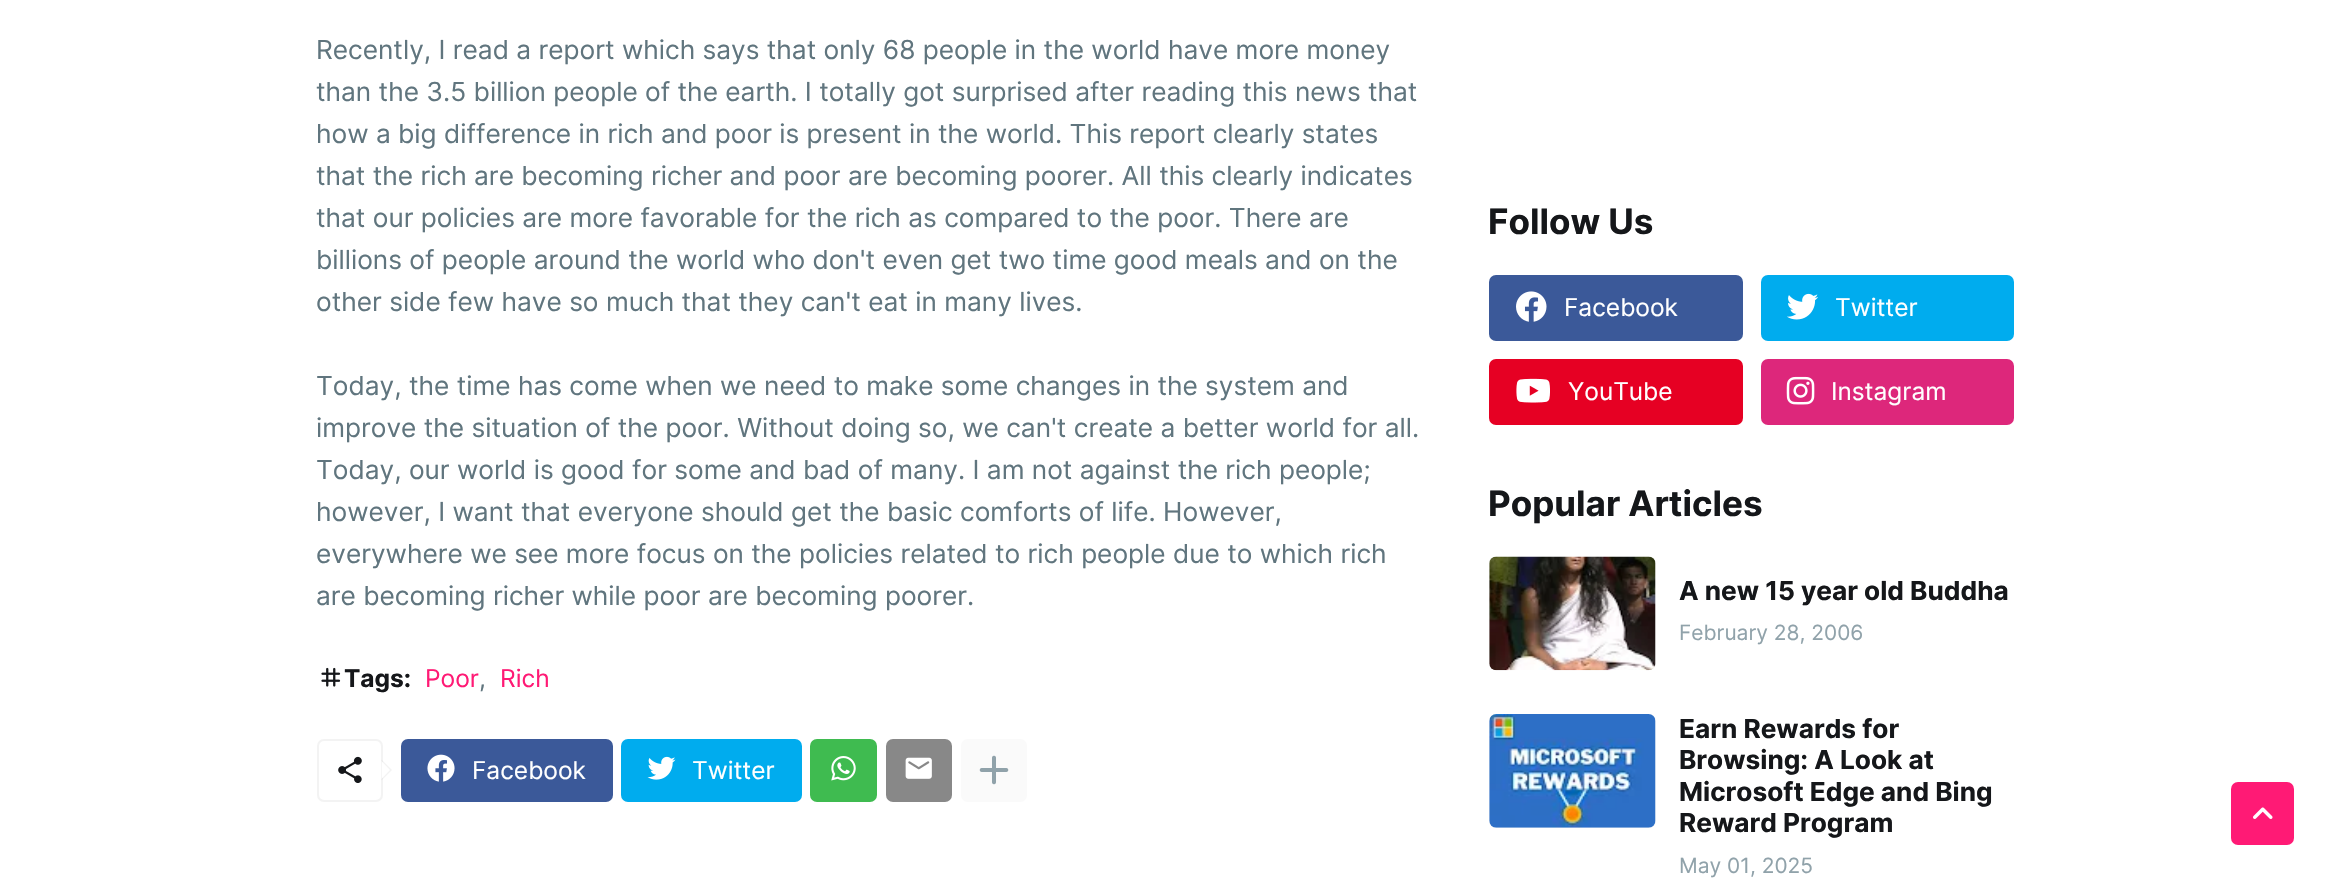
void draw(SkCanvas* c) {
SkPaint p;
p.setAntiAlias(true);
auto F=[&](const char* family, int weight, float size, bool italic = false){SkFontStyle style(weight, SkFontStyle::kNormal_Width,italic ? SkFontStyle::kItalic_Slant : SkFontStyle::kUpright_Slant);SkFont result(fontMgr->matchFamilyStyle(family, style), size);result.setSubpixel(true);return result;};
auto T=[&](const char* s, float x, float y, const SkFont& font){c->drawString(s, x, y, font, p);};
auto Q=[&](float x, float y, float w, float h, float radius){c->drawRoundRect(SkRect::MakeXYWH(x, y, w, h), radius, radius, p);};
auto I=[&](const char* path, float x, float y, float w, float h){auto image = SkImages::DeferredFromEncodedData(SkData::MakeFromFileName(path));c->drawImageRect(image, SkRect::MakeXYWH(x, y, w, h), SkSamplingOptions());};
auto P=[&](const char* data, bool evenOdd = false){SkPath result = *SkParsePath::FromSVGString(data);if (evenOdd) result.setFillType(SkPathFillType::kEvenOdd);return result;};
c->clear(0xffffffff);
auto f1 = F("Inter",400,26.25);
p.setColor(0xff60757e);
T("Recently, I read a report which says that only 68 people in the world have more money",316,59,f1);
T("than the 3.5 billion people of the earth. I totally got surprised after reading this news that",316,101,f1);
T("how a big difference in rich and poor is present in the world. This report clearly states",316,143,f1);
T("that the rich are becoming richer and poor are becoming poorer. All this clearly indicates",316,185,f1);
T("that our policies are more favorable for the rich as compared to the poor. There are",316,227,f1);
T("billions of people around the world who don't even get two time good meals and on the",316,269,f1);
T("other side few have so much that they can't eat in many lives.",316,311,f1);
T("Today, the time has come when we need to make some changes in the system and",316,395,f1);
T("improve the situation of the poor. Without doing so, we can't create a better world for all.",316,437,f1);
T("Today, our world is good for some and bad of many. I am not against the rich people;",316,479,f1);
T("however, I want that everyone should get the basic comforts of life. However,",316,521,f1);
T("everywhere we see more focus on the policies related to rich people due to which rich",316,563,f1);
T("are becoming richer while poor are becoming poorer.",316,605,f1);
I("1.png",321,667,20,20);
auto f2 = F("Inter",700,24.5);
p.setColor(0xff15171a);
T("Tags:",344,687,f2);
auto f3 = F("Inter",400,24.5);
p.setColor(0xffff1a75);
T("Poor",425,687,f3);
p.setColor(0xff60757e);
T(",",479,687,f3);
p.setColor(0xffff1a75);
T("Rich",500,687,f3);
p.setStroke(true);
p.setStrokeWidth(2);
p.setColor(0xfff3f3f3);
c->drawRoundRect(SkRect::MakeXYWH(318,740,64,61),6,6,p);
I("2.png",338,756,24,27);
p.setStroke(false);
p.setColor(0x1f9b9b9b);
c->drawPath(P("M381.5 780.5v-21l10.5 10.5z"),p);
p.setColor(0xffffffff);
c->drawPath(P("M381.5 779v-18l8.5 9z"),p);
p.setColor(0xff3b5999);
Q(401,739,212,63,7);
I("3.png",427,754,28,28);
p.setColor(0xffffffff);
T("Facebook",472,779,f3);
p.setColor(0xff00acee);
Q(621,739,181,63,7);
I("4.png",647,756,29,24);
p.setColor(0xffffffff);
T("Twitter",692,779,f3);
p.setColor(0xff3fbb50);
Q(810,739,67,63,7);
I("5.png",831,756,25,25);
p.setColor(0xff888888);
Q(886,739,66,63,7);
I("6.png",905,757,27,22);
p.setColor(0xfffafafa);
Q(961,739,66,63,7);
I("7.png",979,755,30,30);
auto f4 = F("Inter",700,35);
p.setColor(0xff15171a);
T("Follow Us",1488,234,f4);
p.setColor(0xff3b5999);
Q(1489,275,254,66,7);
I("8.png",1516,291,31,31);
p.setColor(0xffffffff);
T("Facebook",1564,316,f3);
p.setColor(0xff00acee);
Q(1761,275,253,66,7);
I("9.png",1787,293,31,27);
p.setColor(0xffffffff);
T("Twitter",1835,316,f3);
p.setColor(0xffe60023);
Q(1489,359,254,66,7);
I("10.png",1516,378,34,25);
p.setColor(0xffffffff);
T("YouTube",1568,400,f3);
p.setColor(0xffdd277b);
Q(1761,359,253,66,7);
I("11.png",1786,376,29,29);
p.setColor(0xffffffff);
T("Instagram",1831,400,f3);
p.setColor(0xff15171a);
T("Popular Articles",1488,516,f4);
p.setColor(0xfff8f8f8);
Q(1489,557,167,113,7);
I("12.png",1489,556,167,115);
auto f5 = F("Inter",700,26.25);
p.setColor(0xff15171a);
T("A new 15 year old Buddha",1679,600,f5);
auto f6 = F("Inter",400,21);
p.setColor(0xff90a2aa);
T("February 28, 2006",1679,640,f6);
p.setColor(0xfff8f8f8);
Q(1489,714,167,114,7);
I("13.png",1489,714,167,114);
p.setColor(0xff15171a);
T("Earn Rewards for",1679,738,f5);
T("Browsing: A Look at",1679,769,f5);
T("Microsoft Edge and Bing",1679,801,f5);
T("Reward Program",1679,832,f5);
p.setColor(0xff90a2aa);
T("May 01, 2025",1679,873,f6);
p.setColor(0xffff1a75);
Q(2231,782,63,63,7);
I("14.png",2253,807,20,12);
}
